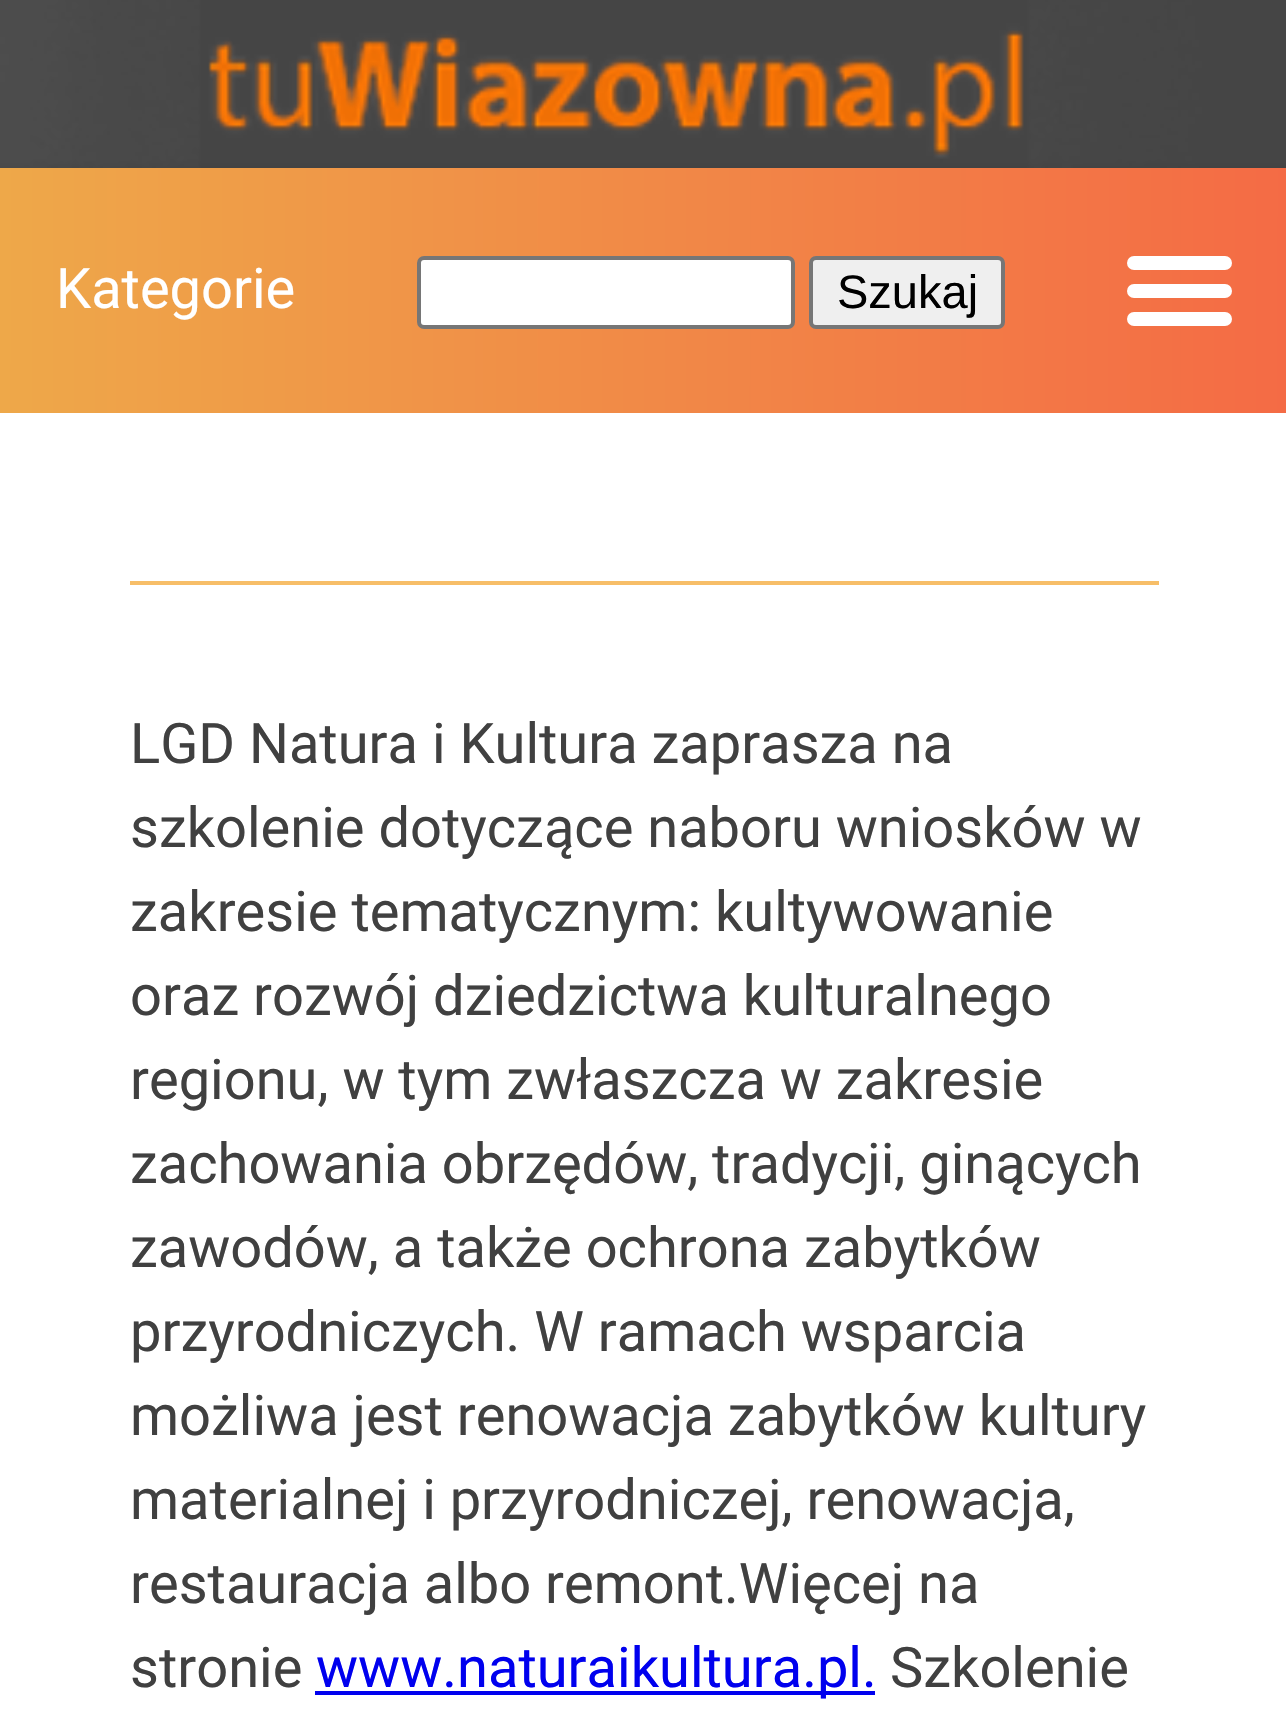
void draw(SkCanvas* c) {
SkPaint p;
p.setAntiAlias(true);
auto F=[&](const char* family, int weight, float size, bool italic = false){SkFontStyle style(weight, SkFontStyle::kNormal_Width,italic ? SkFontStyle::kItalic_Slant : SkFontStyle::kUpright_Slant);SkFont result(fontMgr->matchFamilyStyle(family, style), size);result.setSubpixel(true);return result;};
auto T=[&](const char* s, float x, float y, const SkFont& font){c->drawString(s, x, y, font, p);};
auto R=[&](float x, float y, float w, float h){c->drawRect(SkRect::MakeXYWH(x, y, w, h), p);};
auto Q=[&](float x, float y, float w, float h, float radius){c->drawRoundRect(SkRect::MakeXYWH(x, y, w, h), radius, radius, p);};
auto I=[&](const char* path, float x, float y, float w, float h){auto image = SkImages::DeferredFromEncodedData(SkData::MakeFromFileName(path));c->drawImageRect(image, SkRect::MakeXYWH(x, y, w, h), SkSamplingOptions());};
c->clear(0xffffffff);
I("1.png",0,0,1286,168);
{
const SkColor colors[] = {0xfff46b45,0xffeea849};
const float stops[] = {0,1};
const SkPoint ends[] = {{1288,291}, {0,290}};
p.setShader(SkGradientShader::MakeLinear(ends, colors, stops, 2, SkTileMode::kClamp));
p.setAlpha(255);
}
R(0,168,1286,245);
auto f1 = F("Roboto",400,56);
p.setShader(nullptr);
p.setColor(0xffffffff);
T("Kategorie",56,308,f1);
c->drawRoundRect(SkRect::MakeXYWH(419,258,374,69),5,5,p);
p.setStroke(true);
p.setStrokeWidth(4);
p.setColor(0xff767676);
c->drawRoundRect(SkRect::MakeXYWH(419,258,374,69),5,5,p);
p.setStroke(false);
p.setColor(0xffefefef);
c->drawRoundRect(SkRect::MakeXYWH(811,258,192,69),5,5,p);
p.setStroke(true);
p.setColor(0xff767676);
c->drawRoundRect(SkRect::MakeXYWH(811,258,192,69),5,5,p);
auto f2 = F("Liberation Sans",400,47);
p.setStroke(false);
p.setColor(0xff000000);
T("Szukaj",837,308,f2);
p.setColor(0xffffffff);
Q(1127,284,105,14,7);
Q(1127,256,105,14,7);
Q(1127,312,105,14,7);
p.setColor(0xfff7be68);
R(130,581,1029,4);
p.setColor(0xff404040);
T("LGD Natura i Kultura zaprasza na",130,763,f1);
T("szkolenie dotyczące naboru wniosków w",130,847,f1);
T("zakresie tematycznym: kultywowanie",130,931,f1);
T("oraz rozwój dziedzictwa kulturalnego",130,1015,f1);
T("regionu, w tym zwłaszcza w zakresie",130,1099,f1);
T("zachowania obrzędów, tradycji, ginących",130,1183,f1);
T("zawodów, a także ochrona zabytków",130,1267,f1);
T("przyrodniczych. W ramach wsparcia",130,1351,f1);
T("możliwa jest renowacja zabytków kultury",130,1435,f1);
T("materialnej i przyrodniczej, renowacja,",130,1519,f1);
T("restauracja albo remont.Więcej na",130,1603,f1);
T("stronie",130,1687,f1);
p.setColor(0xff0000ee);
R(315,1691,560,4);
T("www.naturaikultura.pl.",316,1687,f1);
p.setColor(0xff404040);
T("Szkolenie",890,1687,f1);
}
